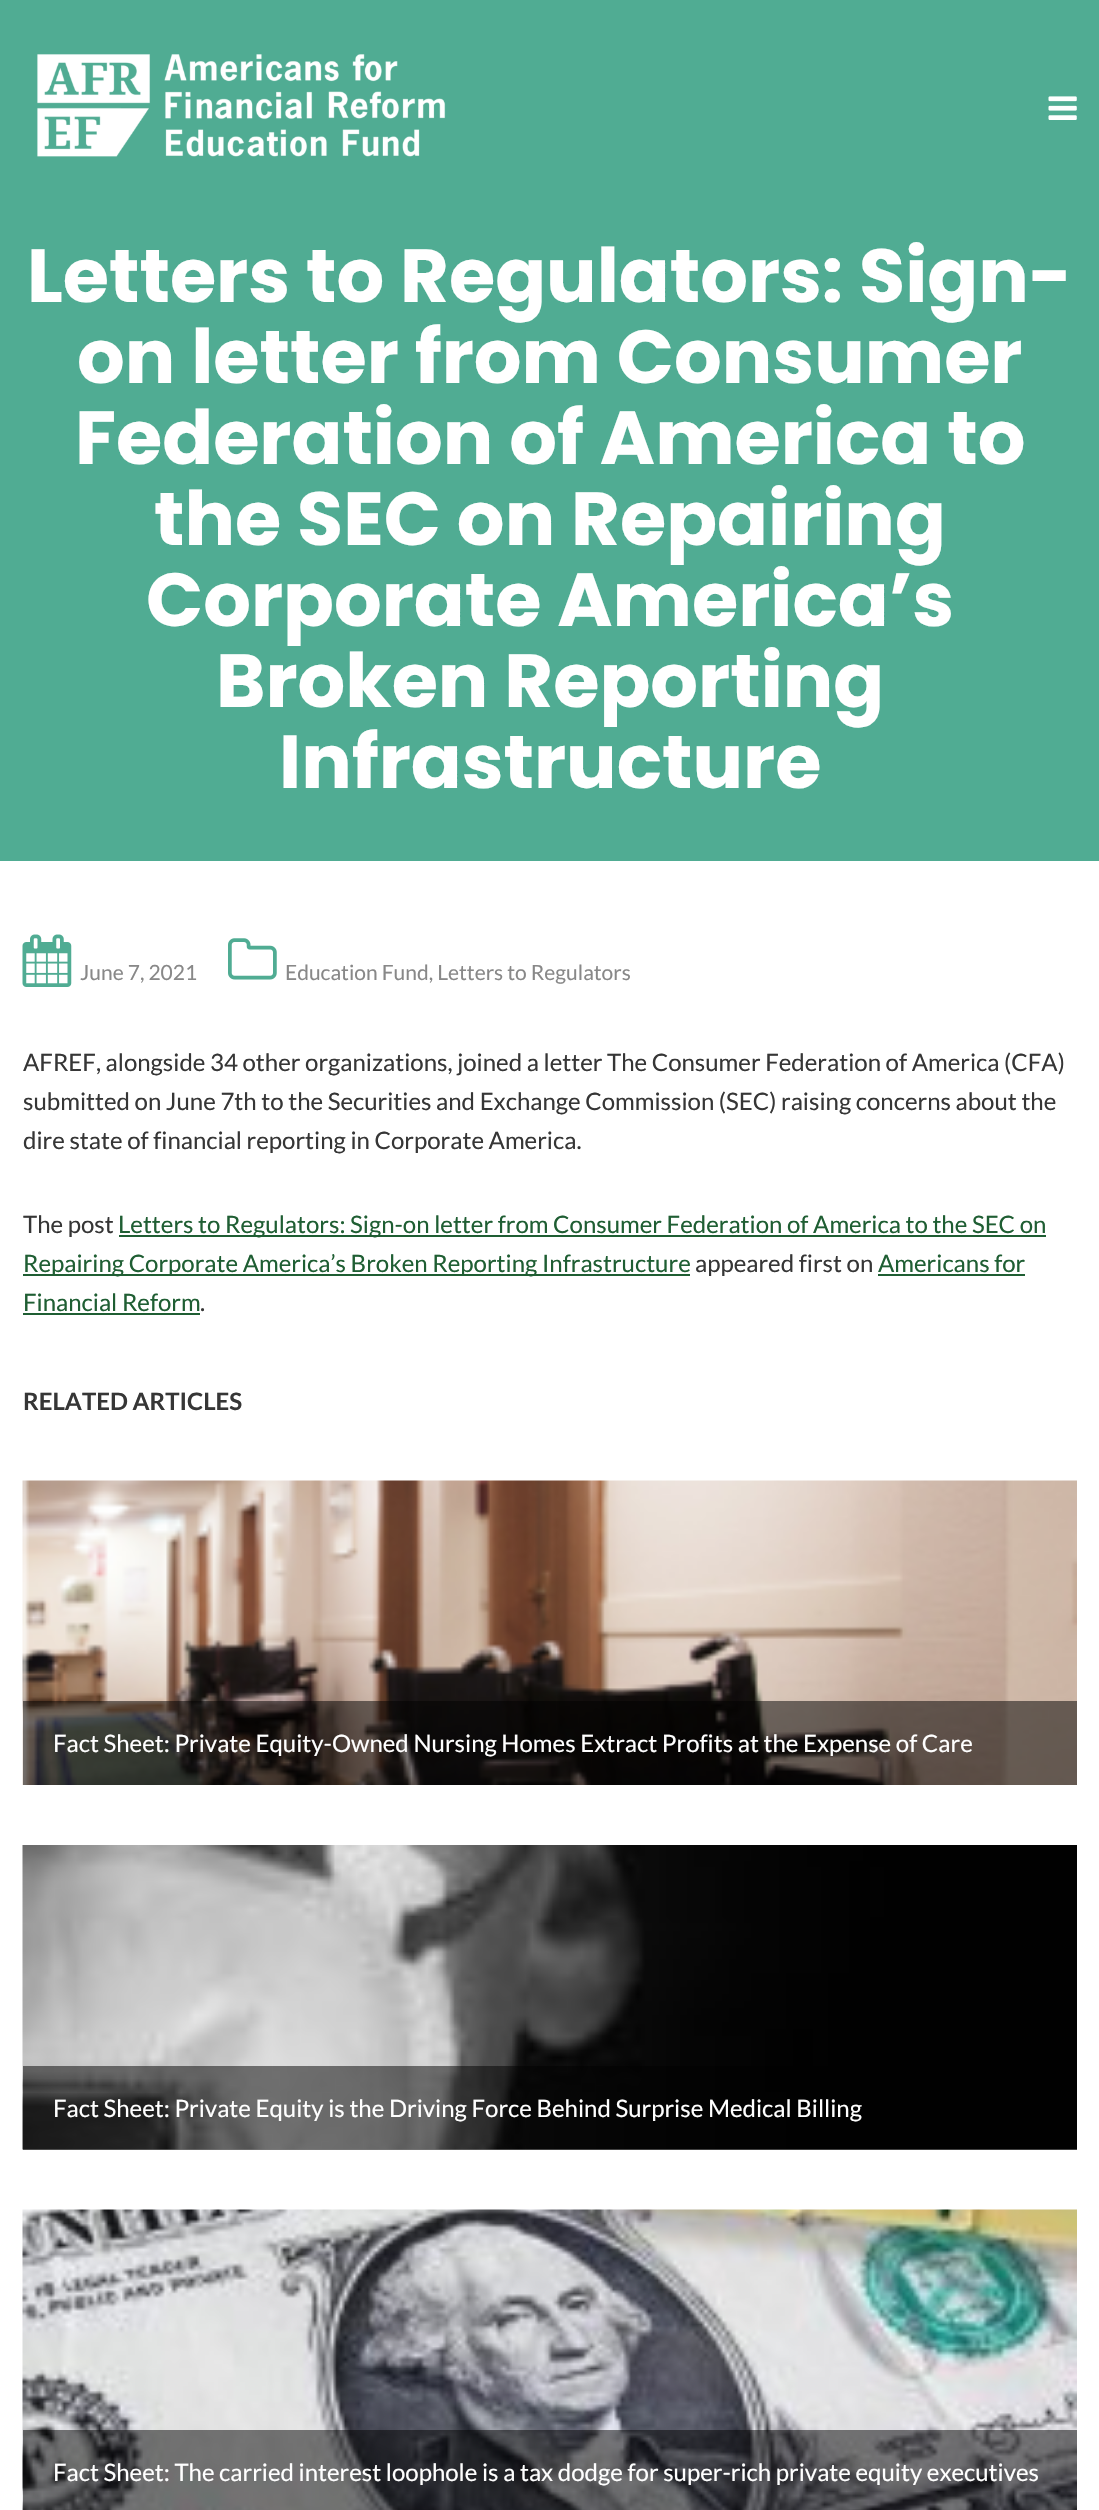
void draw(SkCanvas* c) {
SkPaint p;
p.setAntiAlias(true);
auto F=[&](const char* family, int weight, float size, bool italic = false){SkFontStyle style(weight, SkFontStyle::kNormal_Width,italic ? SkFontStyle::kItalic_Slant : SkFontStyle::kUpright_Slant);SkFont result(fontMgr->matchFamilyStyle(family, style), size);result.setSubpixel(true);return result;};
auto T=[&](const char* s, float x, float y, const SkFont& font){c->drawString(s, x, y, font, p);};
auto R=[&](float x, float y, float w, float h){c->drawRect(SkRect::MakeXYWH(x, y, w, h), p);};
auto I=[&](const char* path, float x, float y, float w, float h){auto image = SkImages::DeferredFromEncodedData(SkData::MakeFromFileName(path));c->drawImageRect(image, SkRect::MakeXYWH(x, y, w, h), SkSamplingOptions());};
c->clear(0xffffffff);
p.setColor(0xff50ac93);
R(0,0,1099,861);
I("1.png",37,54,409,103);
I("2.png",1048,96,29,24);
auto f1 = F("Poppins",700,75);
p.setColor(0xffffffff);
T("Letters to Regulators: Sign-",27,302,f1);
T("on letter from Consumer",77,383,f1);
T("Federation of America to",75,464,f1);
T("the SEC on Repairing",154,545,f1);
T("Corporate America’s",146,626,f1);
T("Broken Reporting",216,707,f1);
T("Infrastructure",279,788,f1);
I("3.png",22,934,50,53);
auto f2 = F("Lato",400,21);
p.setColor(0xff888888);
T("June 7, 2021",80,980,f2);
I("4.png",228,938,49,42);
T("Education Fund, Letters to Regulators",285,980,f2);
auto f3 = F("Lato",400,24);
p.setColor(0xff363636);
T("AFREF, alongside 34 other organizations, joined a letter The Consumer Federation of America (CFA)",23,1071,f3);
T("submitted on June 7th to the Securities and Exchange Commission (SEC) raising concerns about the",23,1110,f3);
T("dire state of financial reporting in Corporate America.",23,1149,f3);
T("The post",23,1233,f3);
p.setColor(0xff1f5e33);
R(119,1235,927,2);
T("Letters to Regulators: Sign-on letter from Consumer Federation of America to the SEC on",118,1233,f3);
R(23,1274,667,2);
T("Repairing Corporate America’s Broken Reporting Infrastructure",23,1272,f3);
p.setColor(0xff363636);
T("appeared first on",695,1272,f3);
p.setColor(0xff1f5e33);
T("Americans for",878,1272,f3);
R(878,1274,147,2);
T("Financial Reform",23,1311,f3);
R(23,1313,177,2);
p.setColor(0xff363636);
T(".",200,1311,f3);
auto f4 = F("Lato",700,24);
T("RELATED ARTICLES",23,1410,f4);
I("5.png",22,1480,1055,305);
p.setColor(0x80000000);
R(23,1701,1054,84);
p.setColor(0xffffffff);
T("Fact Sheet: Private Equity-Owned Nursing Homes Extract Profits at the Expense of Care",53,1752,f3);
I("6.png",22,1845,1055,305);
p.setColor(0x80000000);
R(23,2066,1054,84);
p.setColor(0xffffffff);
T("Fact Sheet: Private Equity is the Driving Force Behind Surprise Medical Billing",53,2117,f3);
I("7.png",22,2209,1055,301);
p.setColor(0x80000000);
R(23,2430,1054,80);
p.setColor(0xffffffff);
T("Fact Sheet: The carried interest loophole is a tax dodge for super-rich private equity executives",53,2481,f3);
}
